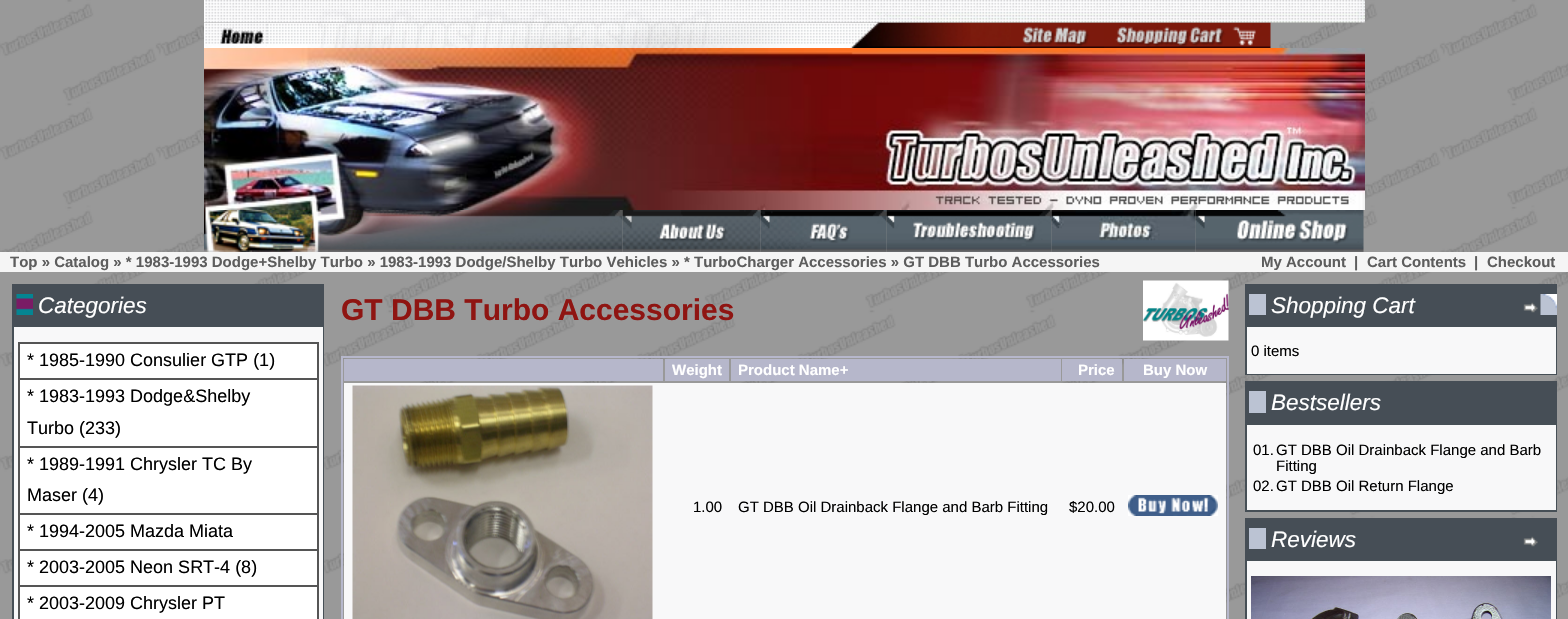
void draw(SkCanvas* c) {
SkPaint p;
p.setAntiAlias(true);
auto F=[&](const char* family, int weight, float size, bool italic = false){SkFontStyle style(weight, SkFontStyle::kNormal_Width,italic ? SkFontStyle::kItalic_Slant : SkFontStyle::kUpright_Slant);SkFont result(fontMgr->matchFamilyStyle(family, style), size);result.setSubpixel(true);return result;};
auto T=[&](const char* s, float x, float y, const SkFont& font){c->drawString(s, x, y, font, p);};
auto R=[&](float x, float y, float w, float h){c->drawRect(SkRect::MakeXYWH(x, y, w, h), p);};
auto I=[&](const char* path, float x, float y, float w, float h){auto image = SkImages::DeferredFromEncodedData(SkData::MakeFromFileName(path));c->drawImageRect(image, SkRect::MakeXYWH(x, y, w, h), SkSamplingOptions());};
c->clear(0xffffffff);
I("1.png",0,0,1568,619);
I("2.png",204,0,1161,23);
I("3.png",204,22,63,26);
I("4.png",267,22,744,26);
I("5.png",1011,22,93,26);
I("6.png",1104,22,167,26);
I("7.png",204,48,1161,162);
I("8.png",204,210,419,42);
I("9.png",622,210,139,42);
I("10.png",760,210,127,42);
I("11.png",886,210,166,42);
I("12.png",1051,210,145,42);
I("13.png",1195,210,169,42);
p.setColor(0xfff5f5f5);
R(0,252,1568,20);
auto f1 = F("Liberation Sans",700,15);
p.setColor(0xff5d5d5d);
T("Top » Catalog » * 1983-1993 Dodge+Shelby Turbo » 1983-1993 Dodge/Shelby Turbo Vehicles » * TurboCharger Accessories » GT DBB Turbo Accessories",10,267,f1);
T("My Account",1261,267,f1);
T("|",1354,267,f1);
T("Cart Contents",1367,267,f1);
T("|",1474,267,f1);
T("Checkout",1487,267,f1);
p.setColor(0xff464e56);
R(12,284,312,42);
I("14.png",16,294,17,21);
auto f2 = F("Liberation Sans",400,22.5,true);
p.setColor(0xffffffff);
T("Categories",38,313,f2);
p.setColor(0xff464f56);
R(12,326,312,293);
p.setColor(0xfff8f8f9);
R(14,327,309,292);
p.setColor(0xffffffff);
R(20,344,297,34);
p.setColor(0xff555555);
R(18,342,300,2);
R(317,342,2,36);
R(18,342,2,36);
auto f3 = F("Liberation Sans",400,18);
p.setColor(0xff000000);
T("* 1985-1990 Consulier GTP (1)",27,366,f3);
p.setColor(0xffffffff);
R(20,380,297,66);
p.setColor(0xff555555);
R(18,378,300,2);
R(317,378,2,68);
R(18,378,2,68);
p.setColor(0xff000000);
T("* 1983-1993 Dodge&Shelby",27,402,f3);
T("Turbo (233)",27,434,f3);
p.setColor(0xffffffff);
R(20,448,297,65);
p.setColor(0xff555555);
R(18,446,300,2);
R(317,446,2,67);
R(18,446,2,67);
p.setColor(0xff000000);
T("* 1989-1991 Chrysler TC By",27,470,f3);
T("Maser (4)",27,501,f3);
p.setColor(0xffffffff);
R(20,515,297,34);
p.setColor(0xff555555);
R(18,513,300,2);
R(317,513,2,36);
R(18,513,2,36);
p.setColor(0xff000000);
T("* 1994-2005 Mazda Miata",27,537,f3);
p.setColor(0xffffffff);
R(20,551,297,34);
p.setColor(0xff555555);
R(18,549,300,2);
R(317,549,2,36);
R(18,549,2,36);
p.setColor(0xff000000);
T("* 2003-2005 Neon SRT-4 (8)",27,573,f3);
p.setColor(0xffffffff);
R(20,587,297,32);
p.setColor(0xff555555);
R(18,585,300,2);
R(317,585,2,34);
R(18,585,2,34);
p.setColor(0xff000000);
T("* 2003-2009 Chrysler PT",27,609,f3);
auto f4 = F("Liberation Sans",700,30);
p.setColor(0xff8f1512);
T("GT DBB Turbo Accessories",341,320,f4);
I("15.png",1143,280,86,61);
p.setStroke(true);
p.setStrokeWidth(2);
p.setColor(0xffb6b7cb);
c->drawRect(SkRect::MakeXYWH(342,357,886,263),p);
p.setStroke(false);
R(344,359,319,22);
R(665,359,64,22);
p.setColor(0xffffffff);
T("Weight",672,375,f1);
p.setColor(0xffb6b7cb);
R(731,359,330,22);
p.setColor(0xffffffff);
T("Product Name+",738,375,f1);
p.setColor(0xffb6b7cb);
R(1062,359,60,22);
p.setColor(0xffffffff);
T("Price",1078,375,f1);
p.setColor(0xffb6b7cb);
R(1124,359,102,22);
p.setColor(0xffffffff);
T("Buy Now",1143,375,f1);
p.setColor(0xfff8f8f9);
R(344,383,882,236);
I("16.png",352,385,301,234);
auto f5 = F("Liberation Sans",400,15);
p.setColor(0xff000000);
T("1.00",693,512,f5);
T("GT DBB Oil Drainback Flange and Barb Fitting",738,512,f5);
T("$20.00",1069,512,f5);
I("17.png",1128,495,90,21);
p.setColor(0xff464e56);
R(1245,284,312,42);
p.setColor(0xffbbc3d3);
R(1249,294,17,21);
p.setColor(0xffffffff);
T("Shopping Cart",1271,313,f2);
I("18.png",1523,302,15,11);
I("19.png",1540,294,17,21);
p.setColor(0xff464f56);
R(1245,326,312,49);
p.setColor(0xfff8f8f9);
R(1247,327,309,47);
p.setColor(0xff000000);
T("0 items",1251,356,f5);
p.setColor(0xff464e56);
R(1245,381,312,42);
p.setColor(0xffbbc3d3);
R(1249,391,17,22);
p.setColor(0xffffffff);
T("Bestsellers",1271,410,f2);
p.setColor(0xff464f56);
R(1245,423,312,89);
p.setColor(0xfff8f8f9);
R(1247,425,309,85);
p.setColor(0xff000000);
T("01.",1253,455,f5);
T("GT DBB Oil Drainback Flange and Barb",1276,455,f5);
T("Fitting",1276,471,f5);
T("02.",1253,491,f5);
T("GT DBB Oil Return Flange",1276,491,f5);
p.setColor(0xff464e56);
R(1245,518,312,42);
p.setColor(0xffbbc3d3);
R(1249,528,17,21);
p.setColor(0xffffffff);
T("Reviews",1271,547,f2);
I("18.png",1523,536,15,11);
p.setColor(0xff464f56);
R(1245,560,312,59);
p.setColor(0xfff8f8f9);
R(1247,561,309,58);
I("20.png",1251,576,300,43);
}
